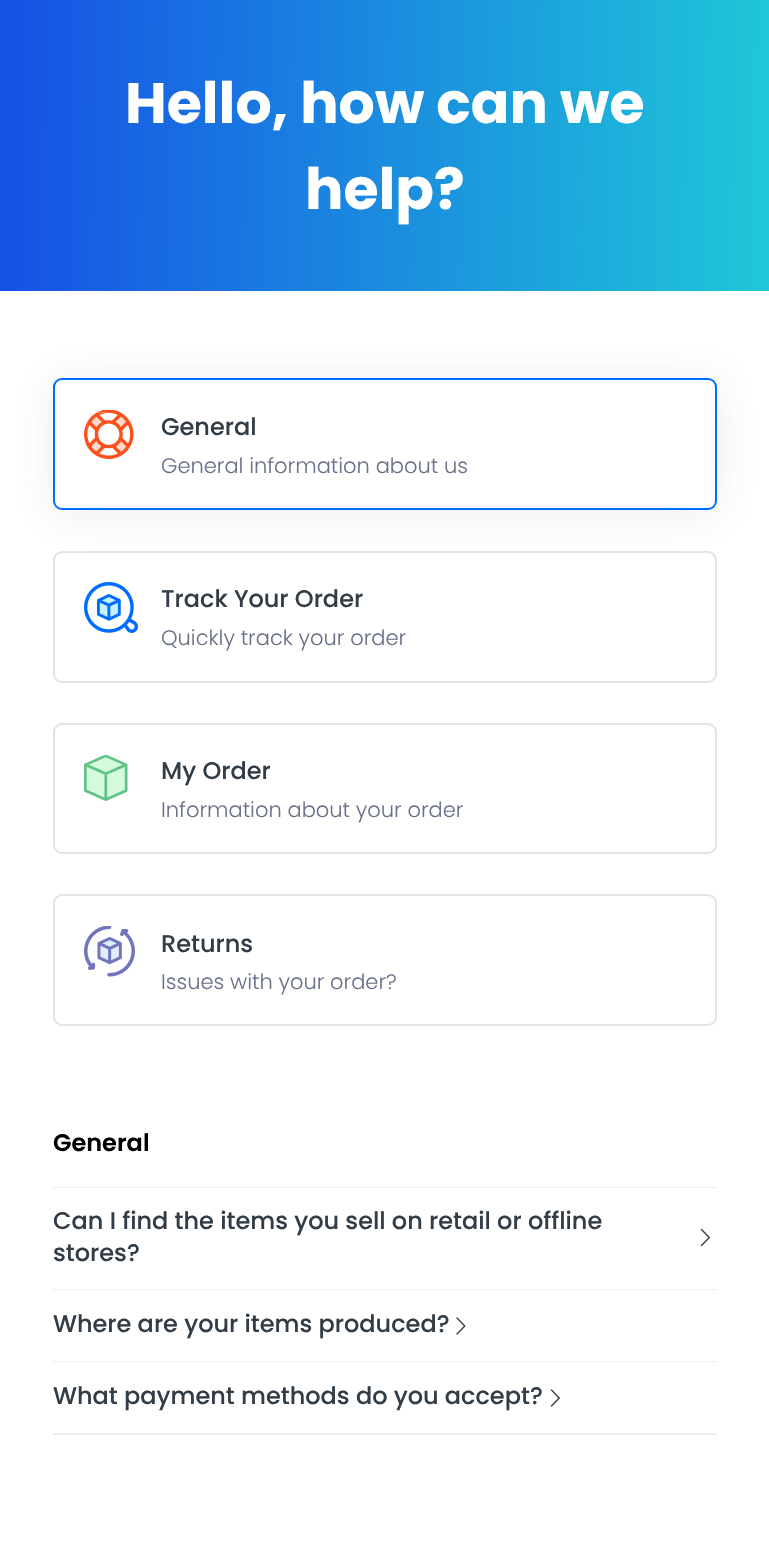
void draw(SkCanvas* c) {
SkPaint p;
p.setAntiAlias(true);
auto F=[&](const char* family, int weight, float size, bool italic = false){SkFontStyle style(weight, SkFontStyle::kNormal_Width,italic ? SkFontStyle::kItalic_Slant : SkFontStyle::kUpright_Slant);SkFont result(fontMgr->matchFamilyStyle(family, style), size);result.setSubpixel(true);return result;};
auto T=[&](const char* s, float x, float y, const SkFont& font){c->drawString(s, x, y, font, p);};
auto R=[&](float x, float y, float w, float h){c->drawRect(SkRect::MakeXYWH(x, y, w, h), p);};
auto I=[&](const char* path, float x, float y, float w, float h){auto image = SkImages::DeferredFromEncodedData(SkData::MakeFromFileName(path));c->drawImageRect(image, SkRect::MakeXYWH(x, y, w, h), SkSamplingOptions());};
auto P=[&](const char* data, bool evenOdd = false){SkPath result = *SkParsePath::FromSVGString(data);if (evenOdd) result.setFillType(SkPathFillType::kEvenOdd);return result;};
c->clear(0xffffffff);
{
const SkColor colors[] = {0xff21dfd6,0xff164fe5};
const float stops[] = {0,1};
const SkPoint ends[] = {{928,155}, {-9,138}};
p.setShader(SkGradientShader::MakeLinear(ends, colors, stops, 2, SkTileMode::kClamp));
p.setAlpha(255);
}
R(0,0,769,291);
auto f1 = F("Poppins",700,57);
p.setShader(nullptr);
p.setColor(0xffffffff);
T("Hello, how can we",125,123,f1);
T("help?",305,209,f1);
c->save();
c->clipPath(P("M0 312h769v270h-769zm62 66h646c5 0 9 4 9 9v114c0 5-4 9-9 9h-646c-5 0-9-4-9-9v-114c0-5 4-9 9-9z",true),true);
p.setColor(0x1a414553);
p.setMaskFilter(SkMaskFilter::MakeBlur(kNormal_SkBlurStyle, 22.5));
c->drawRoundRect(SkRect::MakeXYWH(53,381,664,132),9,9,p);
p.setMaskFilter(nullptr);
c->restore();
p.setStroke(true);
p.setStrokeWidth(2);
p.setColor(0xff006dff);
c->drawRoundRect(SkRect::MakeXYWH(54,379,662,130),8,8,p);
I("1.png",84,410,50,49);
auto f2 = F("Poppins",500,24);
p.setStroke(false);
p.setColor(0xff333d47);
T("General",161,435,f2);
auto f3 = F("Poppins",300,21);
p.setColor(0xff6c718b);
T("General information about us",161,473,f3);
p.setStroke(true);
p.setColor(0xffe2e4e7);
c->drawRoundRect(SkRect::MakeXYWH(54,552,662,130),8,8,p);
I("2.png",84,582,54,51);
p.setStroke(false);
p.setColor(0xff333d47);
T("Track Your Order",161,607,f2);
p.setColor(0xff6c718b);
T("Quickly track your order",161,645,f3);
p.setStroke(true);
p.setColor(0xffe2e4e7);
c->drawRoundRect(SkRect::MakeXYWH(54,724,662,129),8,8,p);
I("3.png",84,755,44,46);
p.setStroke(false);
p.setColor(0xff333d47);
T("My Order",161,779,f2);
p.setColor(0xff6c718b);
T("Information about your order",161,817,f3);
p.setStroke(true);
p.setColor(0xffe2e4e7);
c->drawRoundRect(SkRect::MakeXYWH(54,895,662,130),8,8,p);
I("4.png",84,926,51,51);
p.setStroke(false);
p.setColor(0xff333d47);
T("Returns",161,952,f2);
p.setColor(0xff6c718b);
T("Issues with your order?",161,989,f3);
auto f4 = F("Poppins",600,24);
p.setColor(0xff000000);
T("General",53,1151,f4);
p.setColor(0xffebeef5);
R(53,1187,664,1);
R(53,1289,664,1);
p.setColor(0xff333d47);
T("Can I find the items you sell on retail or offline",53,1229,f2);
I("5.png",700,1228,10,19);
T("stores?",53,1261,f2);
p.setColor(0xffebeef5);
R(53,1361,664,1);
p.setColor(0xff333d47);
T("Where are your items produced?",53,1332,f2);
I("6.png",456,1317,10,18);
p.setColor(0xffebeef5);
R(53,1433,664,2);
p.setColor(0xff333d47);
T("What payment methods do you accept?",53,1404,f2);
I("7.png",550,1389,10,18);
}
